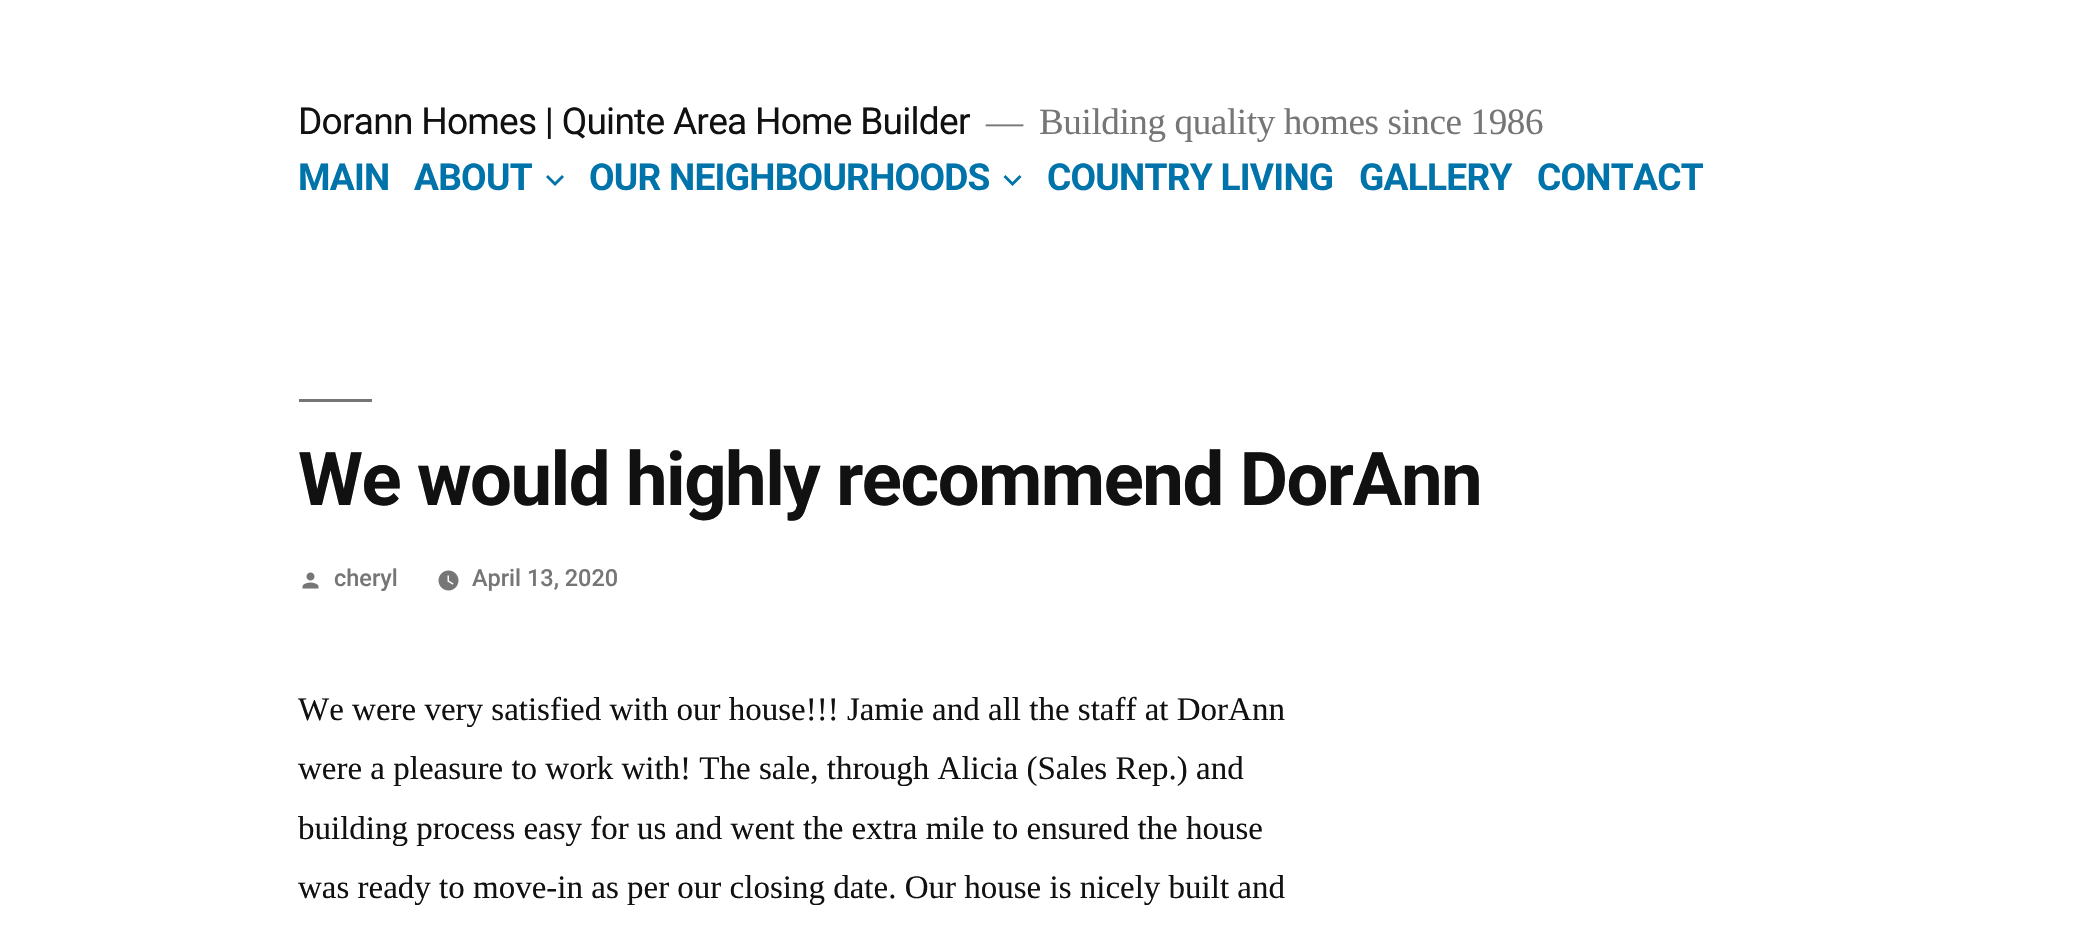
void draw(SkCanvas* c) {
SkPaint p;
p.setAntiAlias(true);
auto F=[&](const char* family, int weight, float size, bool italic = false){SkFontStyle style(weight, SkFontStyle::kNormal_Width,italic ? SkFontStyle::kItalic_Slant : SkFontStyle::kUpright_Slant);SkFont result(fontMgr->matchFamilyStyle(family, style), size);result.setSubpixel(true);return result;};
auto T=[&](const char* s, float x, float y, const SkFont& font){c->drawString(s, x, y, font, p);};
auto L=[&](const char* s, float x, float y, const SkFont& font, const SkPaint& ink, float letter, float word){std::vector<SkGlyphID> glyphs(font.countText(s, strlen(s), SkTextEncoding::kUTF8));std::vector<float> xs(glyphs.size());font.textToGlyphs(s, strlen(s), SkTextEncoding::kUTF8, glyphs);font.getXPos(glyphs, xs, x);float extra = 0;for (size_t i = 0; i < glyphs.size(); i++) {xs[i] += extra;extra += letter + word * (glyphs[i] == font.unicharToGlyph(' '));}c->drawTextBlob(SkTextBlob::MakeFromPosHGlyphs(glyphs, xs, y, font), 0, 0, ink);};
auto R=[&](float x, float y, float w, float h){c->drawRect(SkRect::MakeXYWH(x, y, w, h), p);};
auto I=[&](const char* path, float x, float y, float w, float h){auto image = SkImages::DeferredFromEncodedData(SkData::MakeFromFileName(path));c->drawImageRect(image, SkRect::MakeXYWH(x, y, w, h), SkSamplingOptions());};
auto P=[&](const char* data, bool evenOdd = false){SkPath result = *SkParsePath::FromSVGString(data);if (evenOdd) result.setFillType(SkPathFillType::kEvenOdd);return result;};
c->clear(0xffffffff);
auto f1 = F("Roboto",400,37.1);
p.setColor(0xff111111);
L("Dorann Homes | Quinte Area Home Builder",298,134,f1,p,-.75,0);
auto f2 = F("Liberation Serif",400,37.1);
p.setColor(0xff767676);
L("—",986,134,f2,p,-.4,0);
L("Building quality homes since 1986",1039,134,f2,p,-.4,0);
auto f3 = F("Roboto",700,37.1);
p.setColor(0xff0073aa);
L("MAIN",298,190,f3,p,-.75,0);
L("ABOUT",414,190,f3,p,-.75,0);
c->drawPath(P("M548 175l7 7l7-7l2 2l-9 9l-9-9z"),p);
L("OUR NEIGHBOURHOODS",589,190,f3,p,-.75,0);
c->drawPath(P("M1005.5 175l7 7l7-7l2 2l-9 9l-9-9z"),p);
L("COUNTRY LIVING",1047,190,f3,p,-.75,0);
L("GALLERY",1359,190,f3,p,-.75,0);
L("CONTACT",1537,190,f3,p,-.75,0);
p.setColor(0xff767676);
R(299,399,73,3);
auto f4 = F("Roboto",700,74.25);
p.setColor(0xff111111);
L("We would highly recommend DorAnn",298,505,f4,p,-1.5,0);
I("1.png",302,572,17,17);
auto f5 = F("Roboto",500,23.5);
p.setColor(0xff767676);
T("cheryl",334,586,f5);
I("2.png",438,570,21,21);
T("April 13, 2020",472,586,f5);
auto f6 = F("Liberation Serif",400,33);
p.setColor(0xff111111);
T("We were very satisfied with our house!!! Jamie and all the staff at DorAnn",298,720,f6);
T("were a pleasure to work with! The sale, through Alicia (Sales Rep.) and",298,779,f6);
T("building process easy for us and went the extra mile to ensured the house",298,839,f6);
T("was ready to move-in as per our closing date. Our house is nicely built and",298,898,f6);
}
